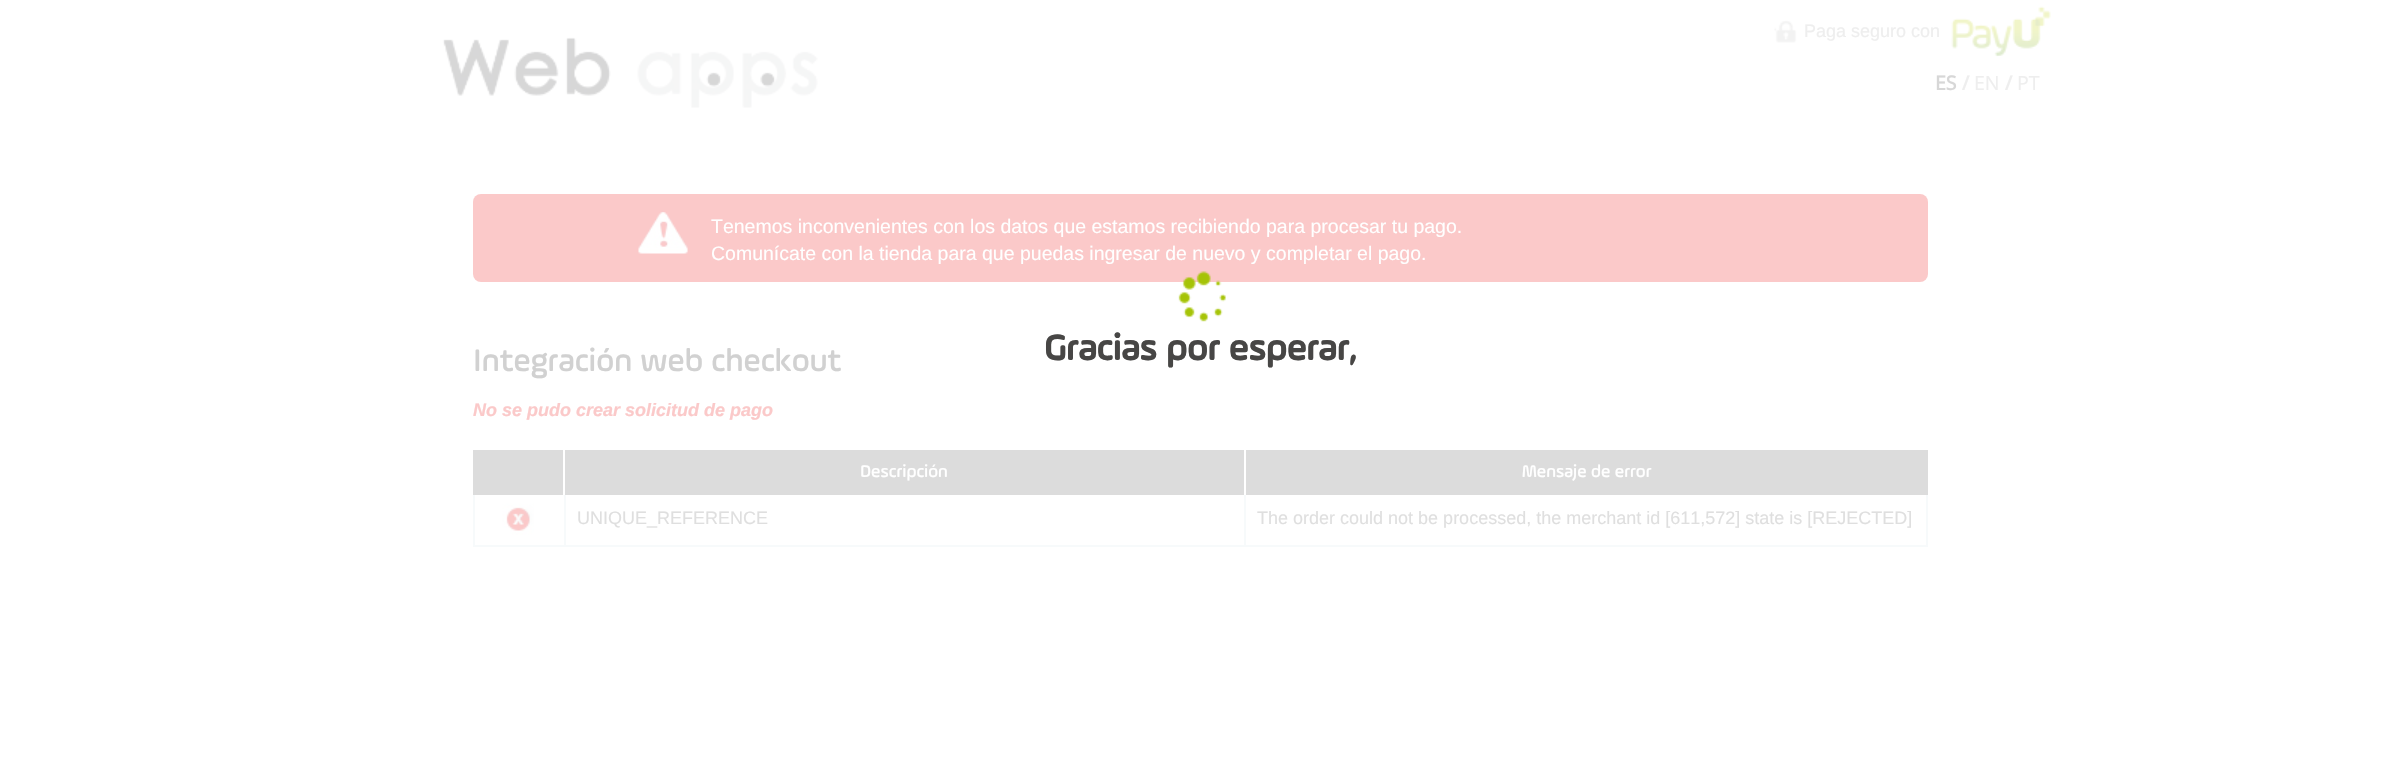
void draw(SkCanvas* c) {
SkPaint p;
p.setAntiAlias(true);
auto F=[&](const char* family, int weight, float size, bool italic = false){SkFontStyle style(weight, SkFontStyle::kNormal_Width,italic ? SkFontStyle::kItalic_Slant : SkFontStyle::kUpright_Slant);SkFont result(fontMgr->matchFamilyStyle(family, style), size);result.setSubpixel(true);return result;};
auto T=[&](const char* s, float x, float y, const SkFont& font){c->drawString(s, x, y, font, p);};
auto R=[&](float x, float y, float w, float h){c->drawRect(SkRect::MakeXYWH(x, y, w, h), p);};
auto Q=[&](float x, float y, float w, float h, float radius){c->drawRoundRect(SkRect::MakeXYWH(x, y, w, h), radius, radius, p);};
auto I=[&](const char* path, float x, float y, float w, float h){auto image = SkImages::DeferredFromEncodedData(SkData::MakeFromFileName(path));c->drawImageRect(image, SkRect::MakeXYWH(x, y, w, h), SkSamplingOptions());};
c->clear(0xffffffff);
I("1.png",442,37,376,71);
I("2.png",1774,20,23,23);
auto f1 = F("Liberation Sans",400,18);
p.setColor(0xffeeeeee);
T("Paga seguro con",1804,37,f1);
I("3.png",1951,6,100,51);
auto f2 = F("Open Sans",700,19.5);
p.setColor(0xffd7d7d7);
T("ES",1935,90,f2);
p.setColor(0xffeeeeee);
T("/",1962,90,f2);
auto f3 = F("Open Sans",400,19.5);
T("EN",1974,90,f3);
T("/",2005,90,f2);
T("PT",2017,90,f3);
p.setColor(0xfffbc9c9);
Q(473,194,1455,88,8);
I("4.png",638,210,50,45);
auto f4 = F("Liberation Sans",400,19.5);
p.setColor(0xffffffff);
T("Tenemos inconvenientes con los datos que estamos recibiendo para procesar tu pago.",711,233,f4);
T("Comunícate con la tienda para que puedas ingresar de nuevo y completar el pago.",711,260,f4);
auto f5 = F("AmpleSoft",500,33);
p.setColor(0xffd1d1d1);
T("Integración web checkout",473,371,f5);
auto f6 = F("Liberation Sans",700,18,true);
p.setColor(0xfffbc9c9);
T("No se pudo crear solicitud de pago",473,416,f6);
p.setColor(0xffdcdcdc);
R(473,450,1455,45);
p.setColor(0xffffffff);
R(563,450,2,45);
R(1244,450,2,45);
auto f7 = F("AmpleSoft",500,18);
T("Descripción",860,477,f7);
T("Mensaje de error",1522,477,f7);
p.setColor(0xfff7fafb);
R(1926,495,2,51);
R(473,545,1455,2);
R(473,495,2,51);
R(564,495,2,50);
I("5.png",502,503,32,32);
R(1244,495,2,50);
p.setColor(0xffdfdfdf);
T("UNIQUE_REFERENCE",577,524,f1);
T("The order could not be processed, the merchant id [611,572] state is [REJECTED]",1257,524,f1);
I("6.png",1178,271,48,51);
auto f8 = F("AmpleSoft",700,37.5);
p.setColor(0xff474645);
T("Gracias por esperar,",1044,360,f8);
}
